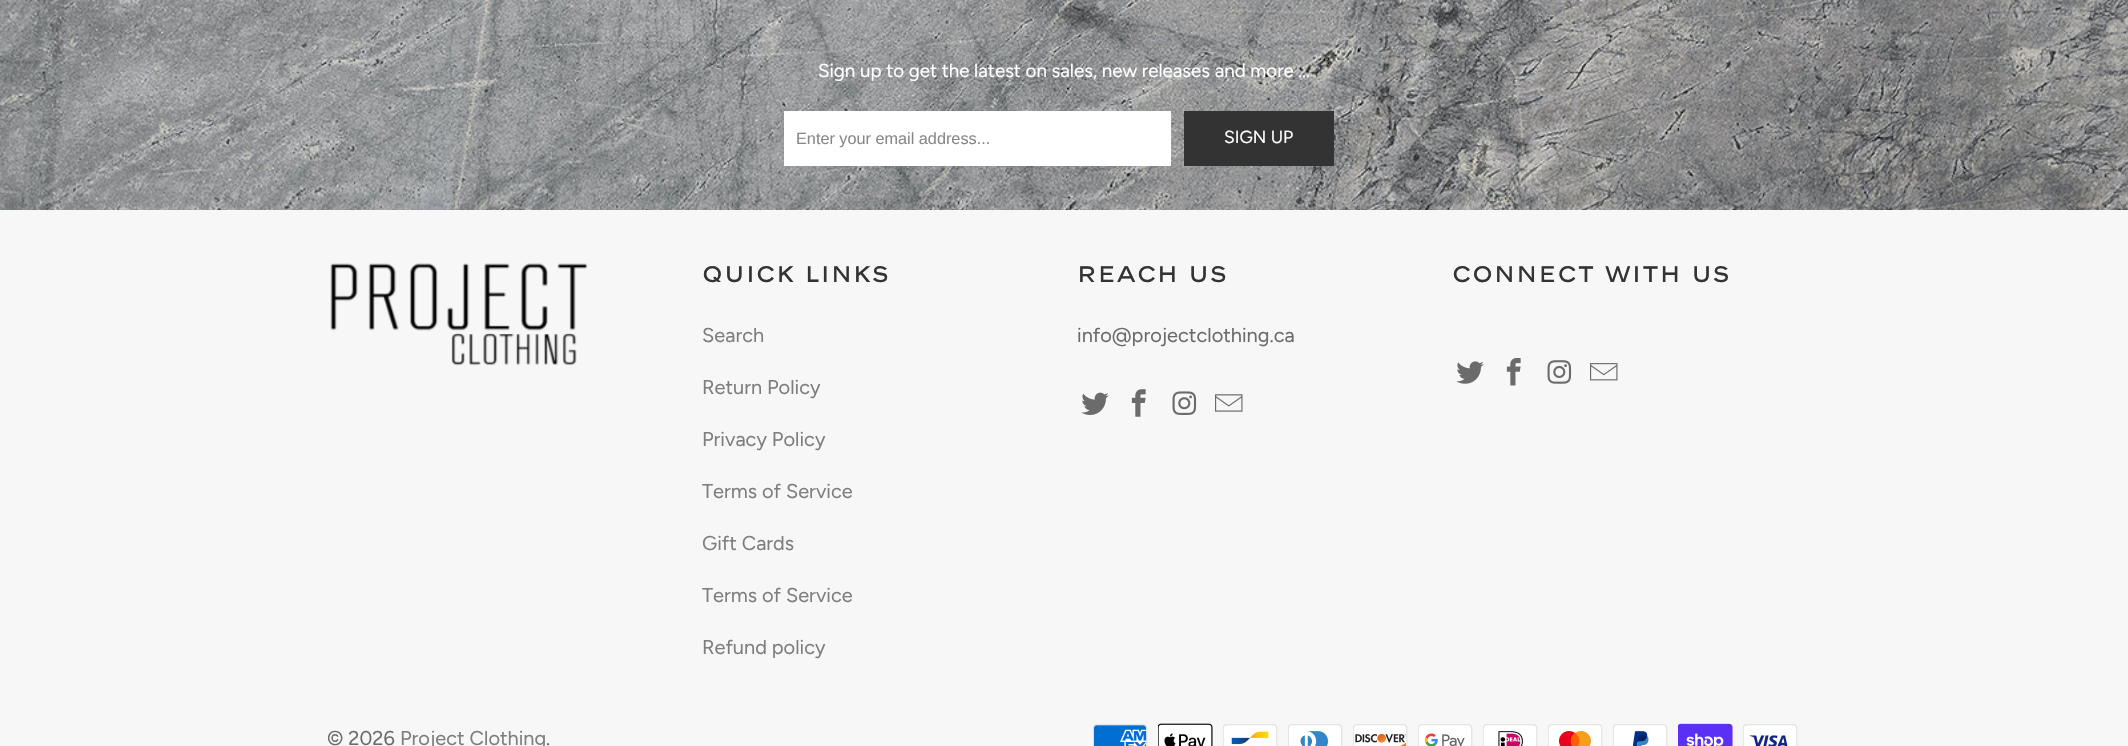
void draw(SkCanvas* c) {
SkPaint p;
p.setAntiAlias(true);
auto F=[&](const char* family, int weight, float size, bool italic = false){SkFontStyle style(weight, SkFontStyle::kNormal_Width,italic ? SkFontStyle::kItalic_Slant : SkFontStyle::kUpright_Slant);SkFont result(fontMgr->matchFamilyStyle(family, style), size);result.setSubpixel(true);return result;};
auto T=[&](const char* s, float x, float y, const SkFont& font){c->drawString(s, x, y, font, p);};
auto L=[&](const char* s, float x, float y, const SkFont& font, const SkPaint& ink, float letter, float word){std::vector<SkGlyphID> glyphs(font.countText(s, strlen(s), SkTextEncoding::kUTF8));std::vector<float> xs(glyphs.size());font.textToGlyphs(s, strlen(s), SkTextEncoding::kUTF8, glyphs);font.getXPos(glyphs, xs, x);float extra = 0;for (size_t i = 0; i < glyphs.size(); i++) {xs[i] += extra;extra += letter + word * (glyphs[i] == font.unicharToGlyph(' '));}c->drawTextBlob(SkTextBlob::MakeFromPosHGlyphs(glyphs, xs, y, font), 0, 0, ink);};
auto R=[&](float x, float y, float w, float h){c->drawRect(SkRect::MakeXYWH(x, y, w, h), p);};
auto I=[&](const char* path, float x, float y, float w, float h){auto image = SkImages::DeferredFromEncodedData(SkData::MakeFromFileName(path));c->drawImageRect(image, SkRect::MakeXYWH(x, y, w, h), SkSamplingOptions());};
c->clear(0xfff7f7f7);
I("1.png",0,0,2128,210);
auto f1 = F("Figtree",400,18.75);
p.setColor(0xffffffff);
T("Sign up to get the latest on sales, new releases and more …",818,77,f1);
R(784,111,387,55);
auto f2 = F("Liberation Sans",400,16.25);
p.setColor(0xff888888);
T("Enter your email address...",796,144,f2);
p.setColor(0xff333333);
R(1184,111,150,55);
auto f3 = F("Figtree",400,17.5);
p.setColor(0xffffffff);
T("SIGN UP",1224,143,f3);
I("2.png",330,263,258,103);
auto f4 = F("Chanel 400",400,22.5);
p.setColor(0xff333333);
L("QUICK LINKS",702,282,f4,p,1.25,0);
auto f5 = F("Figtree",400,20);
p.setColor(0xff7e7e7e);
T("Search",702,342,f5);
T("Return Policy",702,394,f5);
T("Privacy Policy",702,446,f5);
T("Terms of Service",702,498,f5);
T("Gift Cards",702,550,f5);
T("Terms of Service",702,602,f5);
T("Refund policy",702,654,f5);
p.setColor(0xff333333);
L("REACH US",1077,282,f4,p,1.25,0);
p.setColor(0xff6b6b6b);
T("info@projectclothing.ca",1077,342,f5);
I("3.png",1081,392,28,23);
I("4.png",1131,389,15,28);
I("5.png",1172,391,25,24);
I("6.png",1215,394,28,18);
p.setColor(0xff333333);
L("CONNECT WITH US",1452,282,f4,p,1.25,0);
I("7.png",1456,361,28,23);
I("8.png",1506,358,15,28);
I("9.png",1547,360,25,24);
I("10.png",1590,363,28,18);
p.setColor(0xff6b6b6b);
T("© 2026",327,745,f5);
p.setColor(0xff7e7e7e);
T("Project Clothing",400,745,f5);
p.setColor(0xff6b6b6b);
T(".",546,745,f5);
I("11.png",1093,724,55,22);
I("12.png",1158,723,55,23);
I("13.png",1223,724,55,22);
I("14.png",1288,724,55,22);
I("15.png",1353,724,55,22);
I("16.png",1418,724,55,22);
I("17.png",1483,724,55,22);
I("18.png",1548,724,55,22);
I("19.png",1613,724,55,22);
I("20.png",1678,723,55,23);
I("21.png",1743,724,55,22);
}
